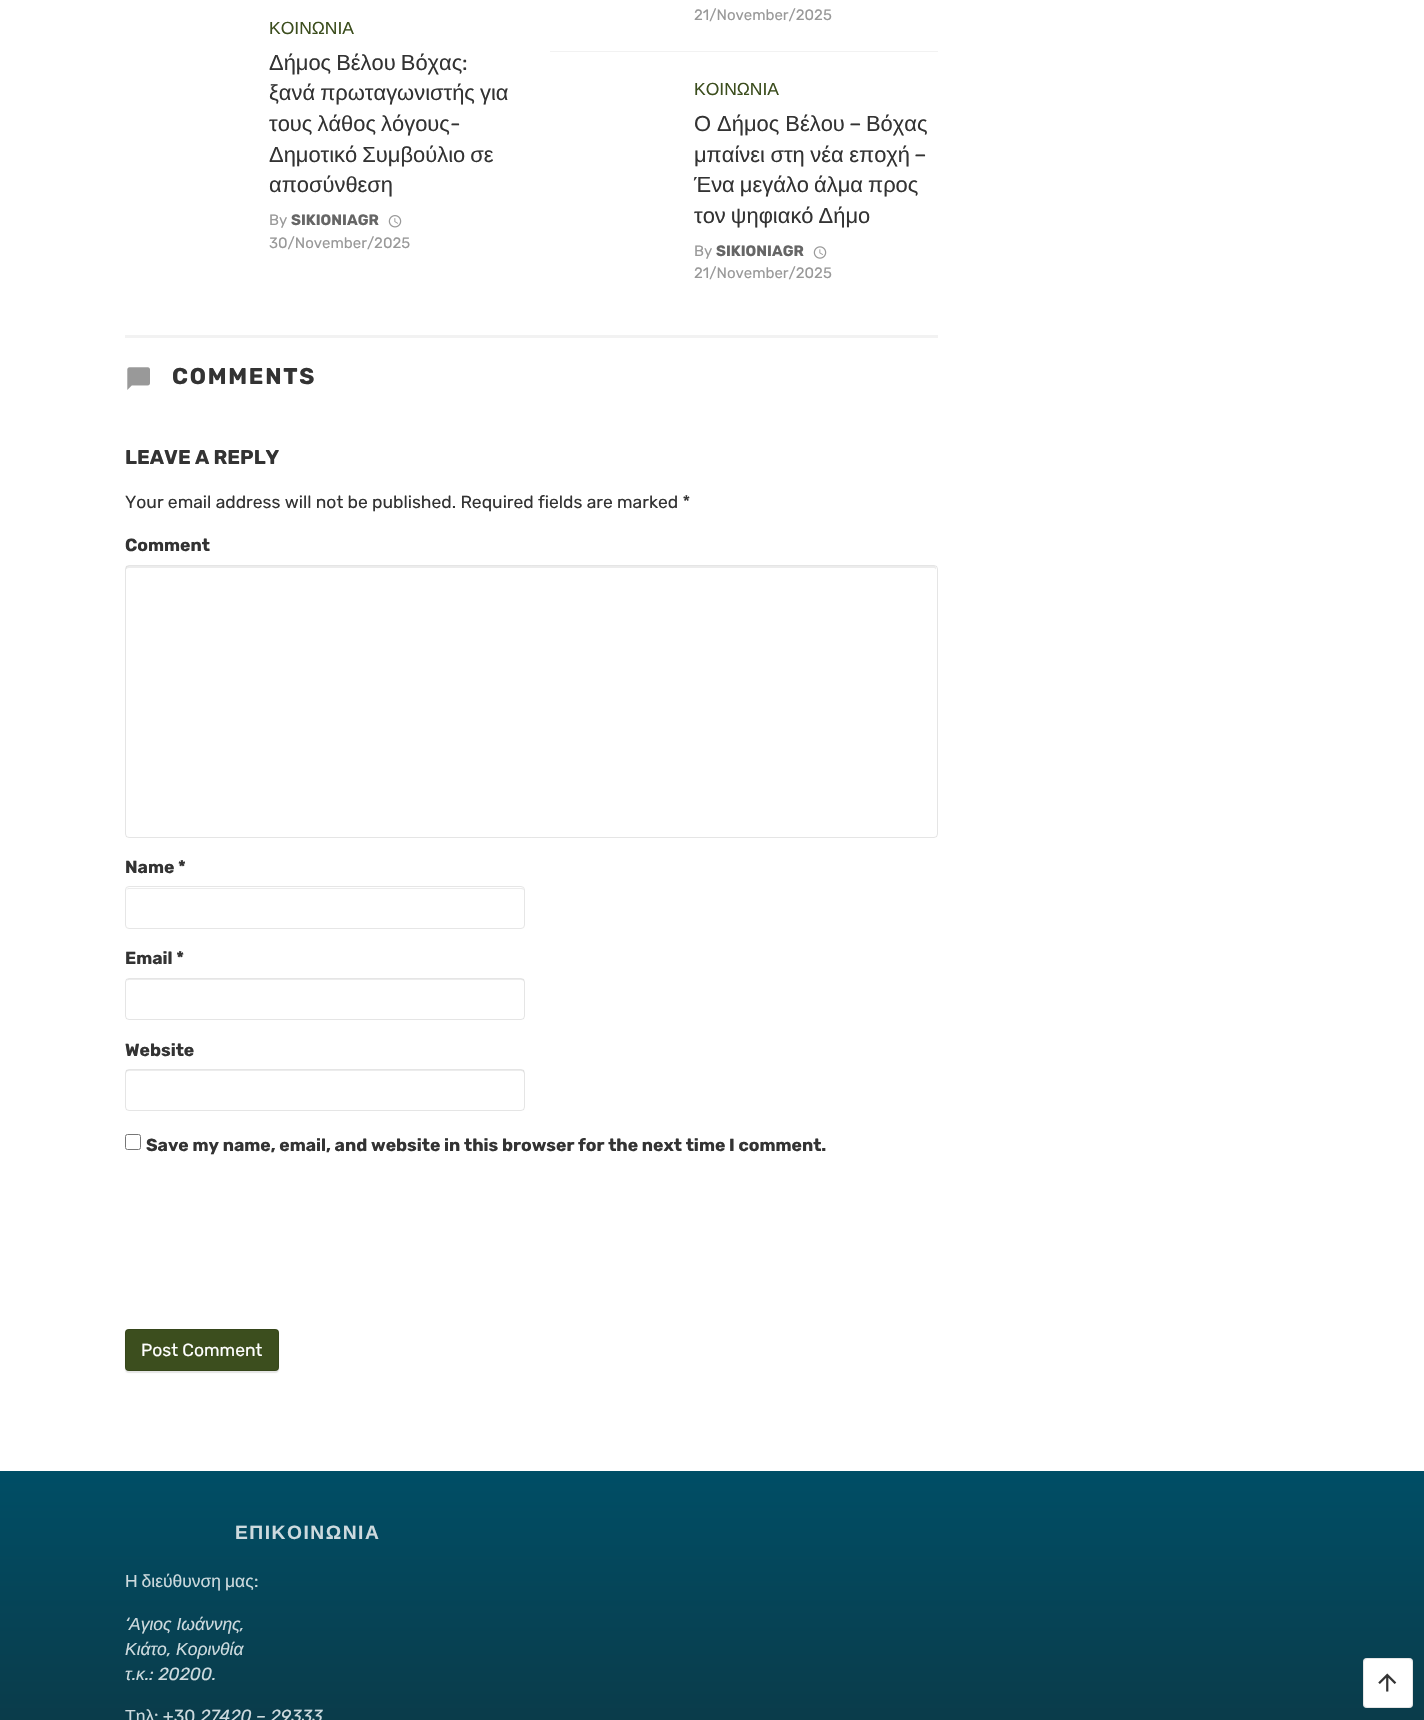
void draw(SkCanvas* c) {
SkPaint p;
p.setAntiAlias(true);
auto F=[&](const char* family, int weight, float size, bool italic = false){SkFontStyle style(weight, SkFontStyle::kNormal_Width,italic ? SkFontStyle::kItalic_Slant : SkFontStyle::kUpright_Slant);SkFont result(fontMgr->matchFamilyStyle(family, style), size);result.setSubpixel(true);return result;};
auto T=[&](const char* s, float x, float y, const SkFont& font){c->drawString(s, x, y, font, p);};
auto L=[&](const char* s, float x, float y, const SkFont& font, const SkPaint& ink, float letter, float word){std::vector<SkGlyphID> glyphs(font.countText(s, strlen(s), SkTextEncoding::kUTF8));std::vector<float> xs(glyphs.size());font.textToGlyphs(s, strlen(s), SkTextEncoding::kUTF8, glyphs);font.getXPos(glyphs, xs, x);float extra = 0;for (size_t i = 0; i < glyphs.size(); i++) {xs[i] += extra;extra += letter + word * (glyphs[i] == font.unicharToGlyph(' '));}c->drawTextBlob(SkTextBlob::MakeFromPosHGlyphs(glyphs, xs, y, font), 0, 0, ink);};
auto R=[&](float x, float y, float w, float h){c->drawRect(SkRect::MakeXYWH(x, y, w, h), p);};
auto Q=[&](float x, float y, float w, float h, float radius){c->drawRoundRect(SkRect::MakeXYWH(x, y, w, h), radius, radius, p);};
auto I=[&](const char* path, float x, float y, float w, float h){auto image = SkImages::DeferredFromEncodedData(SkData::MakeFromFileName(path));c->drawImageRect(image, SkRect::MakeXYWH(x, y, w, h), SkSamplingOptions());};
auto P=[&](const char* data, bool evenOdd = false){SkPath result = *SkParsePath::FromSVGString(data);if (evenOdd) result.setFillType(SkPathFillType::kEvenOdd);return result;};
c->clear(0xffffffff);
auto f1 = F("Liberation Sans",400,17.5);
p.setColor(0xff3c4e1e);
T("ΚΟΙΝΩΝΙΑ",269,34,f1);
auto f2 = F("Liberation Sans",400,21.9);
p.setColor(0xff333333);
L("Δήμος Βέλου Βόχας",269,70,f2,p,0,-1);
auto f3 = F("Rubik",400,21.9);
T(":",462,70,f3);
L("ξανά πρωταγωνιστής για",269,100,f2,p,0,-1);
L("τους λάθος λόγους",269,131,f2,p,0,-1);
T("-",450,131,f3);
L("Δημοτικό Συμβούλιο σε",269,162,f2,p,0,-1);
T("αποσύνθεση",269,192,f2);
auto f4 = F("Rubik",400,15);
p.setColor(0xff999999);
T("By",269,225,f4);
auto f5 = F("Rubik",700,15);
p.setColor(0xff666666);
T("SIKIONIAGR",291,225,f5);
I("1.png",388,215,14,13);
p.setColor(0xff999999);
T("30/November/2025",269,248,f4);
p.setColor(0xfff2f2f2);
R(550,51,388,1);
p.setColor(0xff999999);
T("21/November/2025",694,20,f4);
p.setColor(0xff3c4e1e);
T("ΚΟΙΝΩΝΙΑ",694,95,f1);
p.setColor(0xff333333);
T("Ο Δήμος Βέλου",694,131,f2);
T("–",849,131,f3);
T("Βόχας",866,131,f2);
L("μπαίνει στη νέα εποχή",694,162,f2,p,0,-.5);
T("–",914,162,f3);
L("Ένα μεγάλο άλμα προς",694,192,f2,p,0,-1);
L("τον ψηφιακό Δήμο",694,223,f2,p,0,-1);
p.setColor(0xff999999);
T("By",694,256,f4);
p.setColor(0xff666666);
T("SIKIONIAGR",716,256,f5);
I("2.png",813,246,14,13);
p.setColor(0xff999999);
T("21/November/2025",694,278,f4);
p.setColor(0xfff2f2f2);
R(125,335,813,3);
I("3.png",127,367,23,23);
auto f6 = F("Rubik",700,22.75);
p.setColor(0xff333333);
L("COMMENTS",172,384,f6,p,1.75,0);
auto f7 = F("Rubik",700,20);
T("LEAVE A REPLY",125,464,f7);
auto f8 = F("Rubik",400,17.5);
T("Your email address will not be published. Required fields are marked *",125,508,f8);
auto f9 = F("Rubik",700,17.5);
T("Comment",125,551,f9);
p.setColor(0xffececec);
c->drawPath(P("M129 568h805c1 0 2 1 2 2v-2c0-1-1-2-2-2h-806c-1 0-2 1-2 2v2c0-1 1-2 3-2z"),p);
p.setStroke(true);
p.setStrokeWidth(1);
p.setColor(0x1a000000);
c->drawRoundRect(SkRect::MakeXYWH(125.5,565.5,812,272),3.5,3.5,p);
p.setStroke(false);
p.setColor(0xff333333);
T("Name *",125,873,f9);
p.setColor(0xffececec);
c->drawPath(P("M129 889h392c2 0 3 1 3 2c0-2-1-3-2-3h-394l-1 1l-1 2c0-1 1-2 3-2z"),p);
p.setStroke(true);
p.setColor(0xffe6e6e6);
c->drawRoundRect(SkRect::MakeXYWH(125.5,886.5,399,42),3.5,3.5,p);
p.setStroke(false);
p.setColor(0xff333333);
T("Email *",125,964,f9);
p.setColor(0xffececec);
c->drawPath(P("M129 980h392c2 0 3 1 3 2c0-2-1-3-2-3h-394l-1 1l-1 2c0-1 1-2 3-2z"),p);
p.setStroke(true);
p.setColor(0x1a000000);
c->drawRoundRect(SkRect::MakeXYWH(125.5,978.5,399,41),3.5,3.5,p);
p.setStroke(false);
p.setColor(0xff333333);
T("Website",125,1056,f9);
p.setColor(0xffececec);
c->drawPath(P("M129 1071h392c2 0 3 1 3 3v-3l-2-1h-394c-2 0-2 2-2 4c0-2 1-3 3-3z"),p);
p.setStroke(true);
p.setColor(0x1a000000);
c->drawRoundRect(SkRect::MakeXYWH(125.5,1069.5,399,41),3.5,3.5,p);
p.setColor(0xff767676);
c->drawRoundRect(SkRect::MakeXYWH(125.5,1134.5,15,15),2,2,p);
p.setStroke(false);
p.setColor(0xff333333);
T("Save my name, email, and website in this browser for the next time I comment.",146,1151,f9);
p.setColor(0x1a000000);
p.setMaskFilter(SkMaskFilter::MakeBlur(kNormal_SkBlurStyle, .5));
c->drawRoundRect(SkRect::MakeXYWH(125,1330,154,43),4,4,p);
p.setMaskFilter(nullptr);
p.setColor(0xff3c4e1e);
Q(125,1329,154,42,4);
p.setStroke(true);
p.setColor(0x1a000000);
c->drawRoundRect(SkRect::MakeXYWH(125.5,1329.5,153,41),3.5,3.5,p);
p.setStroke(false);
p.setColor(0xffffffff);
T("Post Comment",141,1356,f8);
{
const SkColor colors[] = {0xff004e66,0xff1b1d1c};
const float stops[] = {0,1};
const SkPoint ends[] = {{713,1471}, {713,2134}};
p.setShader(SkGradientShader::MakeLinear(ends, colors, stops, 2, SkTileMode::kClamp));
p.setAlpha(255);
}
R(0,1471,1424,249);
auto f10 = F("Liberation Sans",700,19.25);
p.setShader(nullptr);
p.setColor(0xffcddade);
L("ΕΠΙΚΟΙΝΩΝΙΑ",235,1539,f10,p,1.5,0);
L("Η διεύθυνση μας",125,1587,f1,p,0,-1);
T(":",254,1587,f8);
auto f11 = F("Rubik",400,17.5,true);
T("‘",125,1630,f11);
auto f12 = F("Liberation Sans",400,17.5,true);
T("Αγιος Ιωάννης",129,1630,f12);
T(",",240,1630,f11);
T("Κιάτο",125,1655,f12);
T(",",167,1655,f11);
T("Κορινθία",176,1655,f12);
T("τ",125,1680,f12);
T("κ",136,1680,f12);
T(".: 20200.",145,1680,f11);
T(".",132,1680,f11);
T("Τηλ",125,1722,f1);
T(": +30",154,1722,f8);
T("27420 – 29333",200,1722,f11);
p.setColor(0xffffffff);
Q(1363,1658,50,50,4);
p.setStroke(true);
p.setColor(0x1a000000);
c->drawRoundRect(SkRect::MakeXYWH(1363.5,1658.5,49,49),3.5,3.5,p);
I("4.png",1378,1673,19,19);
}
